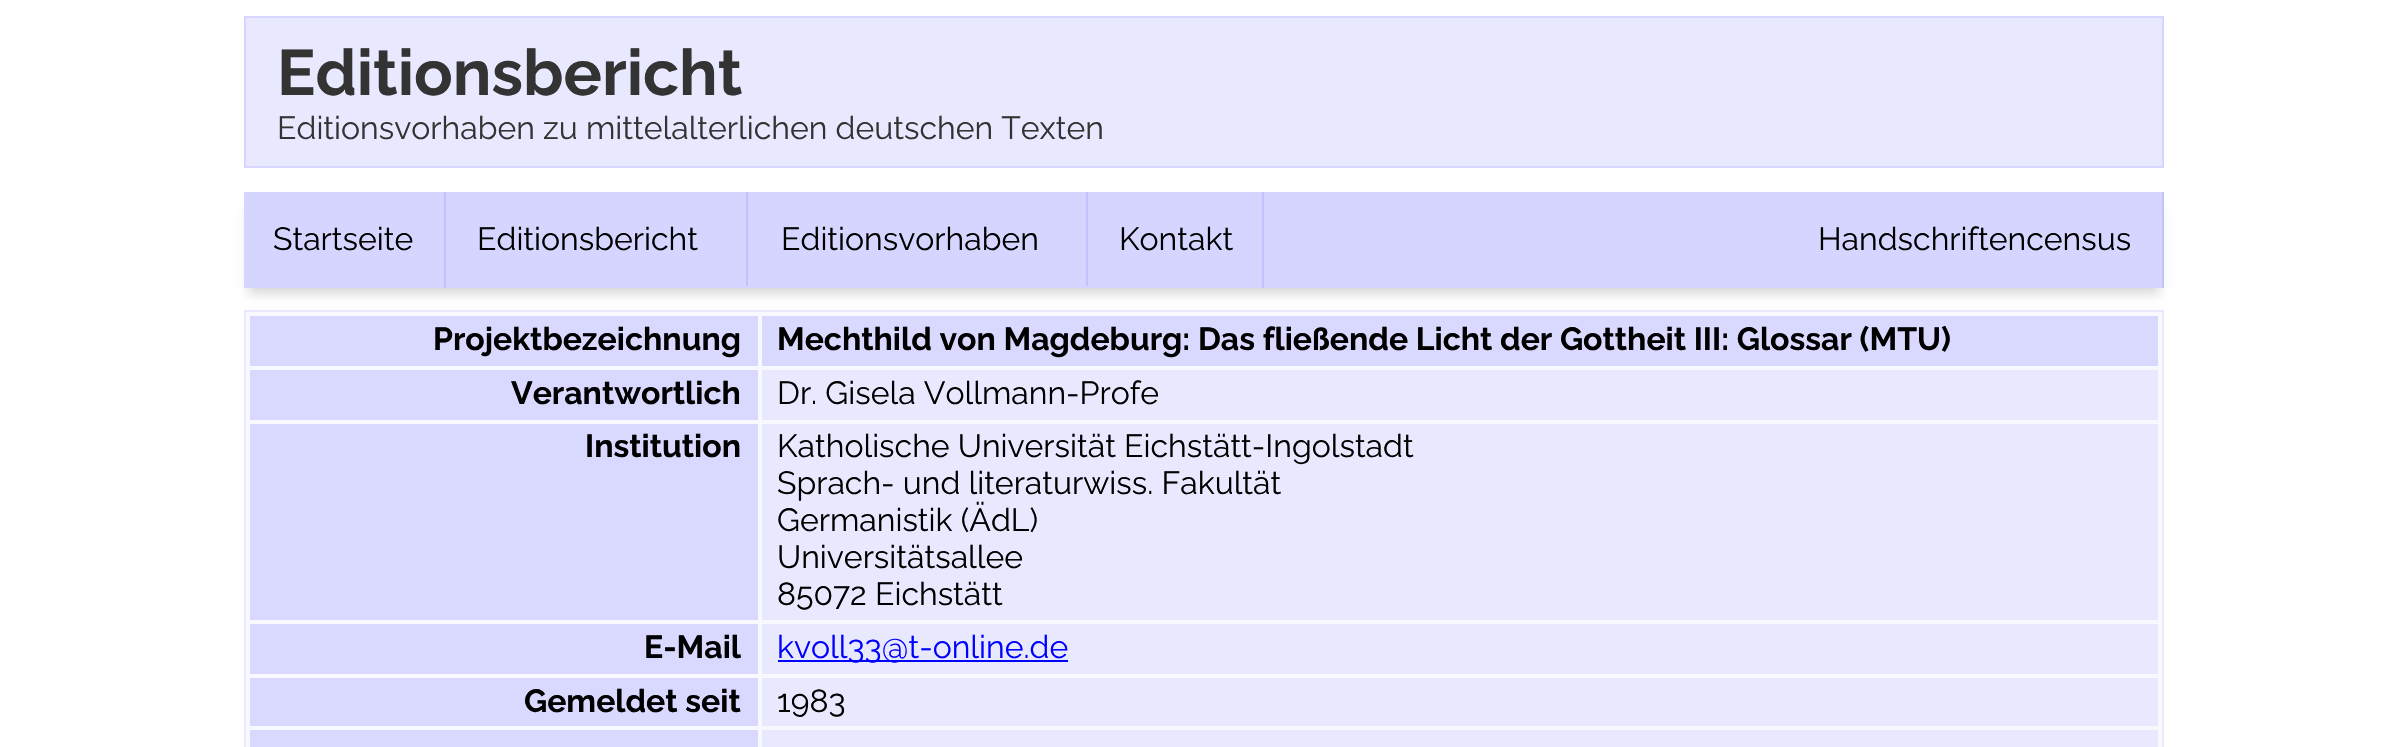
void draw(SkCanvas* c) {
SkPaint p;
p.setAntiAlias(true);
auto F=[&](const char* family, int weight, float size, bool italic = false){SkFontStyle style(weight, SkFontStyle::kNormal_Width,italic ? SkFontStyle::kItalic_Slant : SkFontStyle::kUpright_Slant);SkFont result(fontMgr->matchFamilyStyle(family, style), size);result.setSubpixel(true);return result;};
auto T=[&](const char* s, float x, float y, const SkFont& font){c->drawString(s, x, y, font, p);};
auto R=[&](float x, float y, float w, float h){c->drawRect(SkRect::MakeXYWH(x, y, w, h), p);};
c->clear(0xffffffff);
p.setColor(0xffe8e8ff);
c->drawRect(SkRect::MakeXYWH(245,17,1918,150),p);
p.setStroke(true);
p.setStrokeWidth(2);
p.setColor(0xffd5d5ff);
c->drawRect(SkRect::MakeXYWH(245,17,1918,150),p);
auto f1 = F("Raleway",700,64);
p.setStroke(false);
p.setColor(0xff333333);
T("Editionsbericht",277,95,f1);
auto f2 = F("Raleway",400,32);
T("Editionsvorhaben zu mittelalterlichen deutschen Texten",277,139,f2);
p.setColor(0x26000000);
p.setMaskFilter(SkMaskFilter::MakeBlur(kNormal_SkBlurStyle, 5));
c->drawRect(SkRect::MakeXYWH(248,206,1912,88),p);
p.setMaskFilter(nullptr);
p.setColor(0xffd5d5ff);
R(244,192,1918,96);
p.setColor(0xffc2c2fc);
R(444,192,2,96);
p.setColor(0xff000000);
T("Startseite",273,250,f2);
p.setColor(0xffc2c2fc);
R(746,192,2,96);
p.setColor(0xffd5d5ff);
R(746,286,2,2);
p.setColor(0xff000000);
T("Editionsbericht",477,250,f2);
p.setColor(0xffc2c2fc);
R(1086,192,2,96);
p.setColor(0xffd5d5ff);
R(1086,286,2,2);
p.setColor(0xff000000);
T("Editionsvorhaben",781,250,f2);
p.setColor(0xffc2c2fc);
R(1262,192,2,96);
p.setColor(0xff000000);
T("Kontakt",1119,250,f2);
p.setColor(0xffc2c2fc);
R(2162,192,2,96);
p.setColor(0xff000000);
T("Handschriftencensus",1818,250,f2);
p.setColor(0xfff8f8ff);
c->drawRect(SkRect::MakeXYWH(245,311,1918,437),p);
p.setStroke(true);
p.setColor(0xffe8e8ff);
c->drawRect(SkRect::MakeXYWH(245,311,1918,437),p);
p.setStroke(false);
p.setColor(0xffd9d9ff);
R(250,316,508,50);
auto f3 = F("Raleway",700,32);
p.setColor(0xff000000);
T("Projektbezeichnung",433,350,f3);
p.setColor(0xffd9d9ff);
R(762,316,1396,50);
p.setColor(0xff000000);
T("Mechthild von Magdeburg: Das fließende Licht der Gottheit III: Glossar (MTU)",777,350,f3);
p.setColor(0xffd9d9ff);
R(250,370,508,50);
p.setColor(0xff000000);
T("Verantwortlich",511,404,f3);
p.setColor(0xffe8e8ff);
R(762,370,1396,50);
p.setColor(0xff000000);
T("Dr. Gisela Vollmann-Profe",777,404,f2);
p.setColor(0xffd9d9ff);
R(250,424,508,196);
p.setColor(0xff000000);
T("Institution",585,457,f3);
p.setColor(0xffe8e8ff);
R(762,424,1396,196);
p.setColor(0xff000000);
T("Katholische Universität Eichstätt-Ingolstadt",777,457,f2);
T("Sprach- und literaturwiss. Fakultät",777,494,f2);
T("Germanistik (ÄdL)",777,531,f2);
T("Universitätsallee",777,568,f2);
T("85072 Eichstätt",777,605,f2);
p.setColor(0xffd9d9ff);
R(250,624,508,50);
p.setColor(0xff000000);
T("E-Mail",644,658,f3);
p.setColor(0xffe8e8ff);
R(762,624,1396,50);
p.setColor(0xff0000ff);
R(778,660,290,2);
T("kvoll33@t-online.de",777,658,f2);
p.setColor(0xffd9d9ff);
R(250,678,508,48);
p.setColor(0xff000000);
T("Gemeldet seit",524,712,f3);
p.setColor(0xffe8e8ff);
R(762,678,1396,48);
p.setColor(0xff000000);
T("1983",777,712,f2);
p.setColor(0xffd9d9ff);
R(250,730,508,17);
p.setColor(0xffe8e8ff);
R(762,730,1396,17);
}
